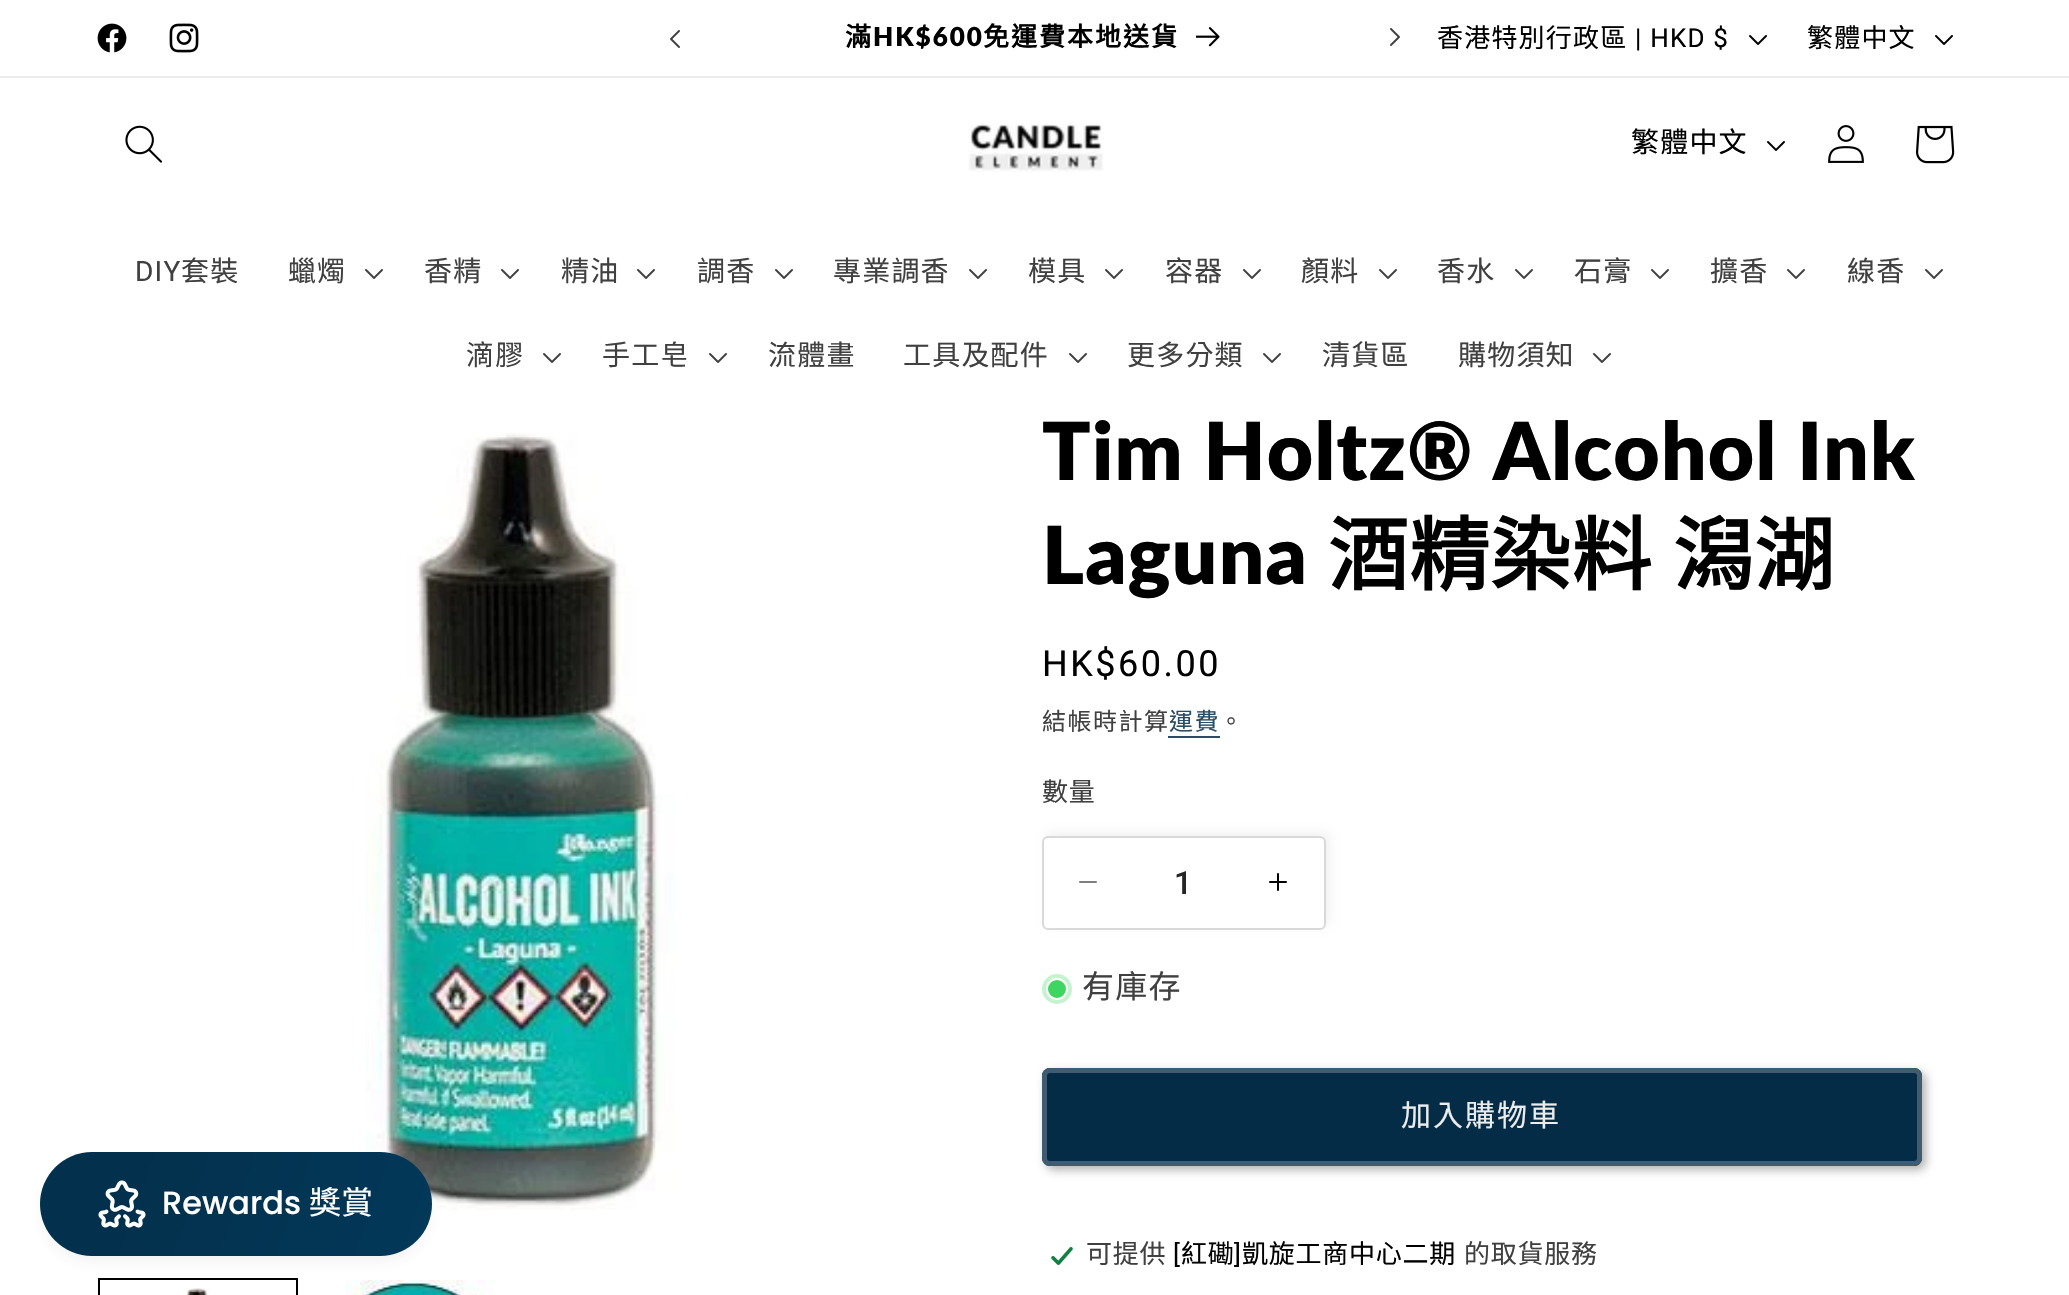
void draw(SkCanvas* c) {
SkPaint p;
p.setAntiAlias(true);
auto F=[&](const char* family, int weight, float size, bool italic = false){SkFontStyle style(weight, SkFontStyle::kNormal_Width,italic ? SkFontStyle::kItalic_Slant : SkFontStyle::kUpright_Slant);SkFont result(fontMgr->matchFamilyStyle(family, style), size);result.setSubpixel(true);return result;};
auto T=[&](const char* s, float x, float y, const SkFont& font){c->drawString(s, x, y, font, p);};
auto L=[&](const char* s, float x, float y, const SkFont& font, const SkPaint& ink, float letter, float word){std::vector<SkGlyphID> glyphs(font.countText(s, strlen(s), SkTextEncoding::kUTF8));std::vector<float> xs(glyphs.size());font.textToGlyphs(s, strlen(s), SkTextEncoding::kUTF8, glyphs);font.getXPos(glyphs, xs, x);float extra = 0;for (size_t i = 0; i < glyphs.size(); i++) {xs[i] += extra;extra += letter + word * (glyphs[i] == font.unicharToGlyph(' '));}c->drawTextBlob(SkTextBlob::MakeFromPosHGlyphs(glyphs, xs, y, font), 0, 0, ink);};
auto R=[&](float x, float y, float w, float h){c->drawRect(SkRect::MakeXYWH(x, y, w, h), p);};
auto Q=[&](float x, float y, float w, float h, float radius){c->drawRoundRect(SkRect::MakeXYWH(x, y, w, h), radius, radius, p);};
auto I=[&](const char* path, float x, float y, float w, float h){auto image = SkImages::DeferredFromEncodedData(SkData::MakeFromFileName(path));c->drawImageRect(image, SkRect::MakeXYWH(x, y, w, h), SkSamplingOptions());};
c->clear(0xffffffff);
p.setColor(0xffebebeb);
R(0,76,2069,2);
I("1.png",97,23,30,30);
I("2.png",169,23,30,30);
I("3.png",670,30,10,18);
auto f1 = F("Noto Sans CJK TC",700,26);
p.setColor(0xff000000);
L("滿",845,46,f1,p,2,0);
auto f2 = F("Lato",800,26);
L("HK$600",873,46,f2,p,2,0);
L("免運費本地送貨",983,46,f1,p,2,0);
I("4.png",1196,27,24,20);
I("5.png",1390,28,10,18);
auto f3 = F("Noto Sans CJK TC",400,26);
L("香港特別行政區",1437,47,f3,p,1.2,0);
auto f4 = F("Roboto",400,26);
L("| HKD $",1635,47,f4,p,1.2,0);
I("6.png",1749,35,18,10);
L("繁體中文",1807,47,f3,p,1.2,0);
I("6.png",1935,35,18,10);
I("7.png",125,125,37,38);
I("8.png",968,122,136,50);
auto f5 = F("Noto Sans CJK TC",400,28);
L("繁體中文",1631,152,f5,p,1.2,0);
I("6.png",1767,141,18,10);
I("9.png",1828,125,36,38);
I("10.png",1916,125,39,39);
auto f6 = F("Roboto",400,28);
p.setColor(0xff404040);
L("DIY",135,281,f6,p,1.2,0);
L("套裝",181,281,f5,p,1.2,0);
L("蠟燭",288,281,f5,p,1.2,0);
I("11.png",365,269,18,10);
L("香精",424,281,f5,p,1.2,0);
I("11.png",501,269,18,10);
L("精油",561,281,f5,p,1.2,0);
I("11.png",637,269,18,10);
L("調香",697,281,f5,p,1.2,0);
I("11.png",775,269,18,10);
L("專業調香",833,281,f5,p,1.2,0);
I("11.png",969,269,18,10);
L("模具",1028,281,f5,p,1.2,0);
I("11.png",1105,269,18,10);
L("容器",1165,281,f5,p,1.2,0);
I("11.png",1243,269,18,10);
L("顏料",1301,281,f5,p,1.2,0);
I("11.png",1379,269,18,10);
L("香水",1437,281,f5,p,1.2,0);
I("11.png",1515,269,18,10);
L("石膏",1574,281,f5,p,1.2,0);
I("11.png",1651,269,18,10);
L("擴香",1710,281,f5,p,1.2,0);
I("11.png",1787,269,18,10);
L("線香",1847,281,f5,p,1.2,0);
I("11.png",1925,269,18,10);
L("滴膠",466,365,f5,p,1.2,0);
I("11.png",543,353,18,10);
L("手工皂",602,365,f5,p,1.2,0);
I("11.png",709,353,18,10);
L("流體畫",768,365,f5,p,1.2,0);
L("工具及配件",903,365,f5,p,1.2,0);
I("11.png",1069,353,18,10);
L("更多分類",1127,365,f5,p,1.2,0);
I("11.png",1263,353,18,10);
L("清貨區",1322,365,f5,p,1.2,0);
L("購物須知",1458,365,f5,p,1.2,0);
I("11.png",1593,353,18,10);
I("13.png",365,433,310,777);
p.setStroke(true);
p.setStrokeWidth(2);
p.setColor(0xff000000);
c->drawRect(SkRect::MakeXYWH(99,1279,198,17),p);
I("15.png",345,1280,149,15);
p.setStroke(false);
p.setColor(0x14444444);
p.setMaskFilter(SkMaskFilter::MakeBlur(kNormal_SkBlurStyle, 8));
c->drawRoundRect(SkRect::MakeXYWH(44,1164,384,96),48,48,p);
p.setMaskFilter(nullptr);
{
const SkColor colors[] = {0xff03314d,0xff033c60};
const float stops[] = {.17,1};
const SkPoint ends[] = {{46,1136}, {579,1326}};
p.setShader(SkGradientShader::MakeLinear(ends, colors, stops, 2, SkTileMode::kClamp));
p.setAlpha(255);
}
Q(40,1152,392,104,52);
I("12.png",98,1180,48,48);
auto f7 = F("Poppins",500,32);
p.setShader(nullptr);
p.setColor(0xffffffff);
T("Rewards",162,1214,f7);
auto f8 = F("Noto Sans CJK TC",400,32);
T("獎賞",309,1214,f8);
I("14.png",186,1288,24,7);
auto f9 = F("Lato",800,80);
p.setColor(0xff000000);
L("Tim Holtz® Alcohol Ink",1042,480,f9,p,1.2,0);
L("Laguna",1042,584,f9,p,1.2,0);
auto f10 = F("Noto Sans CJK TC",700,80);
L("酒精染料 潟湖",1328,584,f10,p,1.2,1);
auto f11 = F("Roboto",400,36);
L("HK$60.00",1042,676,f11,p,2.5,0);
auto f12 = F("Noto Sans CJK TC",400,24);
p.setColor(0xff404040);
L("結帳時計算",1042,730,f12,p,1.5,0);
p.setColor(0xff2b4c62);
L("運費",1169,730,f12,p,1.5,0);
R(1168,736,52,2);
p.setColor(0xff404040);
L("。",1219,730,f12,p,1.5,0);
L("數量",1042,801,f3,p,.75,0);
p.setColor(0x0d000000);
p.setMaskFilter(SkMaskFilter::MakeBlur(kNormal_SkBlurStyle, 5));
c->drawRoundRect(SkRect::MakeXYWH(1046,832,284,94),6,6,p);
p.setMaskFilter(nullptr);
p.setColor(0xffffffff);
Q(1042,836,284,94,6);
I("16.png",1079,881,18,2);
I("17.png",1269,873,18,18);
p.setStroke(true);
p.setColor(0xffd9d9d9);
c->drawRoundRect(SkRect::MakeXYWH(1043,837,282,92),5,5,p);
auto f13 = F("Roboto",500,32);
p.setStroke(false);
p.setColor(0xff262626);
T("1",1174,894,f13);
p.setColor(0xffc5f3cf);
c->drawCircle(1057,989,15,p);
p.setColor(0xff3ed660);
c->drawCircle(1057,989,10,p);
p.setStroke(true);
p.setColor(0xffffffff);
c->drawCircle(1057,989,10,p);
p.setStroke(false);
p.setColor(0xff404040);
L("有庫存",1082,998,f8,p,1.2,0);
p.setColor(0x4d000000);
p.setMaskFilter(SkMaskFilter::MakeBlur(kNormal_SkBlurStyle, 5));
c->drawRoundRect(SkRect::MakeXYWH(1046,1072,880,98),8,8,p);
p.setMaskFilter(nullptr);
p.setColor(0xff052c46);
Q(1042,1068,880,98,8);
p.setStroke(true);
p.setStrokeWidth(4);
c->drawRoundRect(SkRect::MakeXYWH(1044,1070,876,94),6,6,p);
p.setStrokeWidth(5);
p.setColor(0x40ebeced);
c->drawRoundRect(SkRect::MakeXYWH(1044.5,1070.5,875,93),5.5,5.5,p);
auto f14 = F("Noto Sans CJK TC",400,30);
p.setStroke(false);
p.setColor(0xffebeced);
L("加入購物車",1401,1126,f14,p,2,0);
I("18.png",1051,1247,22,18);
p.setColor(0xff404040);
L("可提供",1086,1263,f3,p,.75,0);
p.setColor(0xff000000);
L("[",1173,1263,f4,p,.75,0);
L("紅磡",1181,1263,f3,p,.75,0);
L("]",1234,1263,f4,p,.75,0);
L("凱旋工商中心二期",1242,1263,f3,p,.75,0);
p.setColor(0xff404040);
L("的取貨服務",1464,1263,f3,p,.75,0);
}
